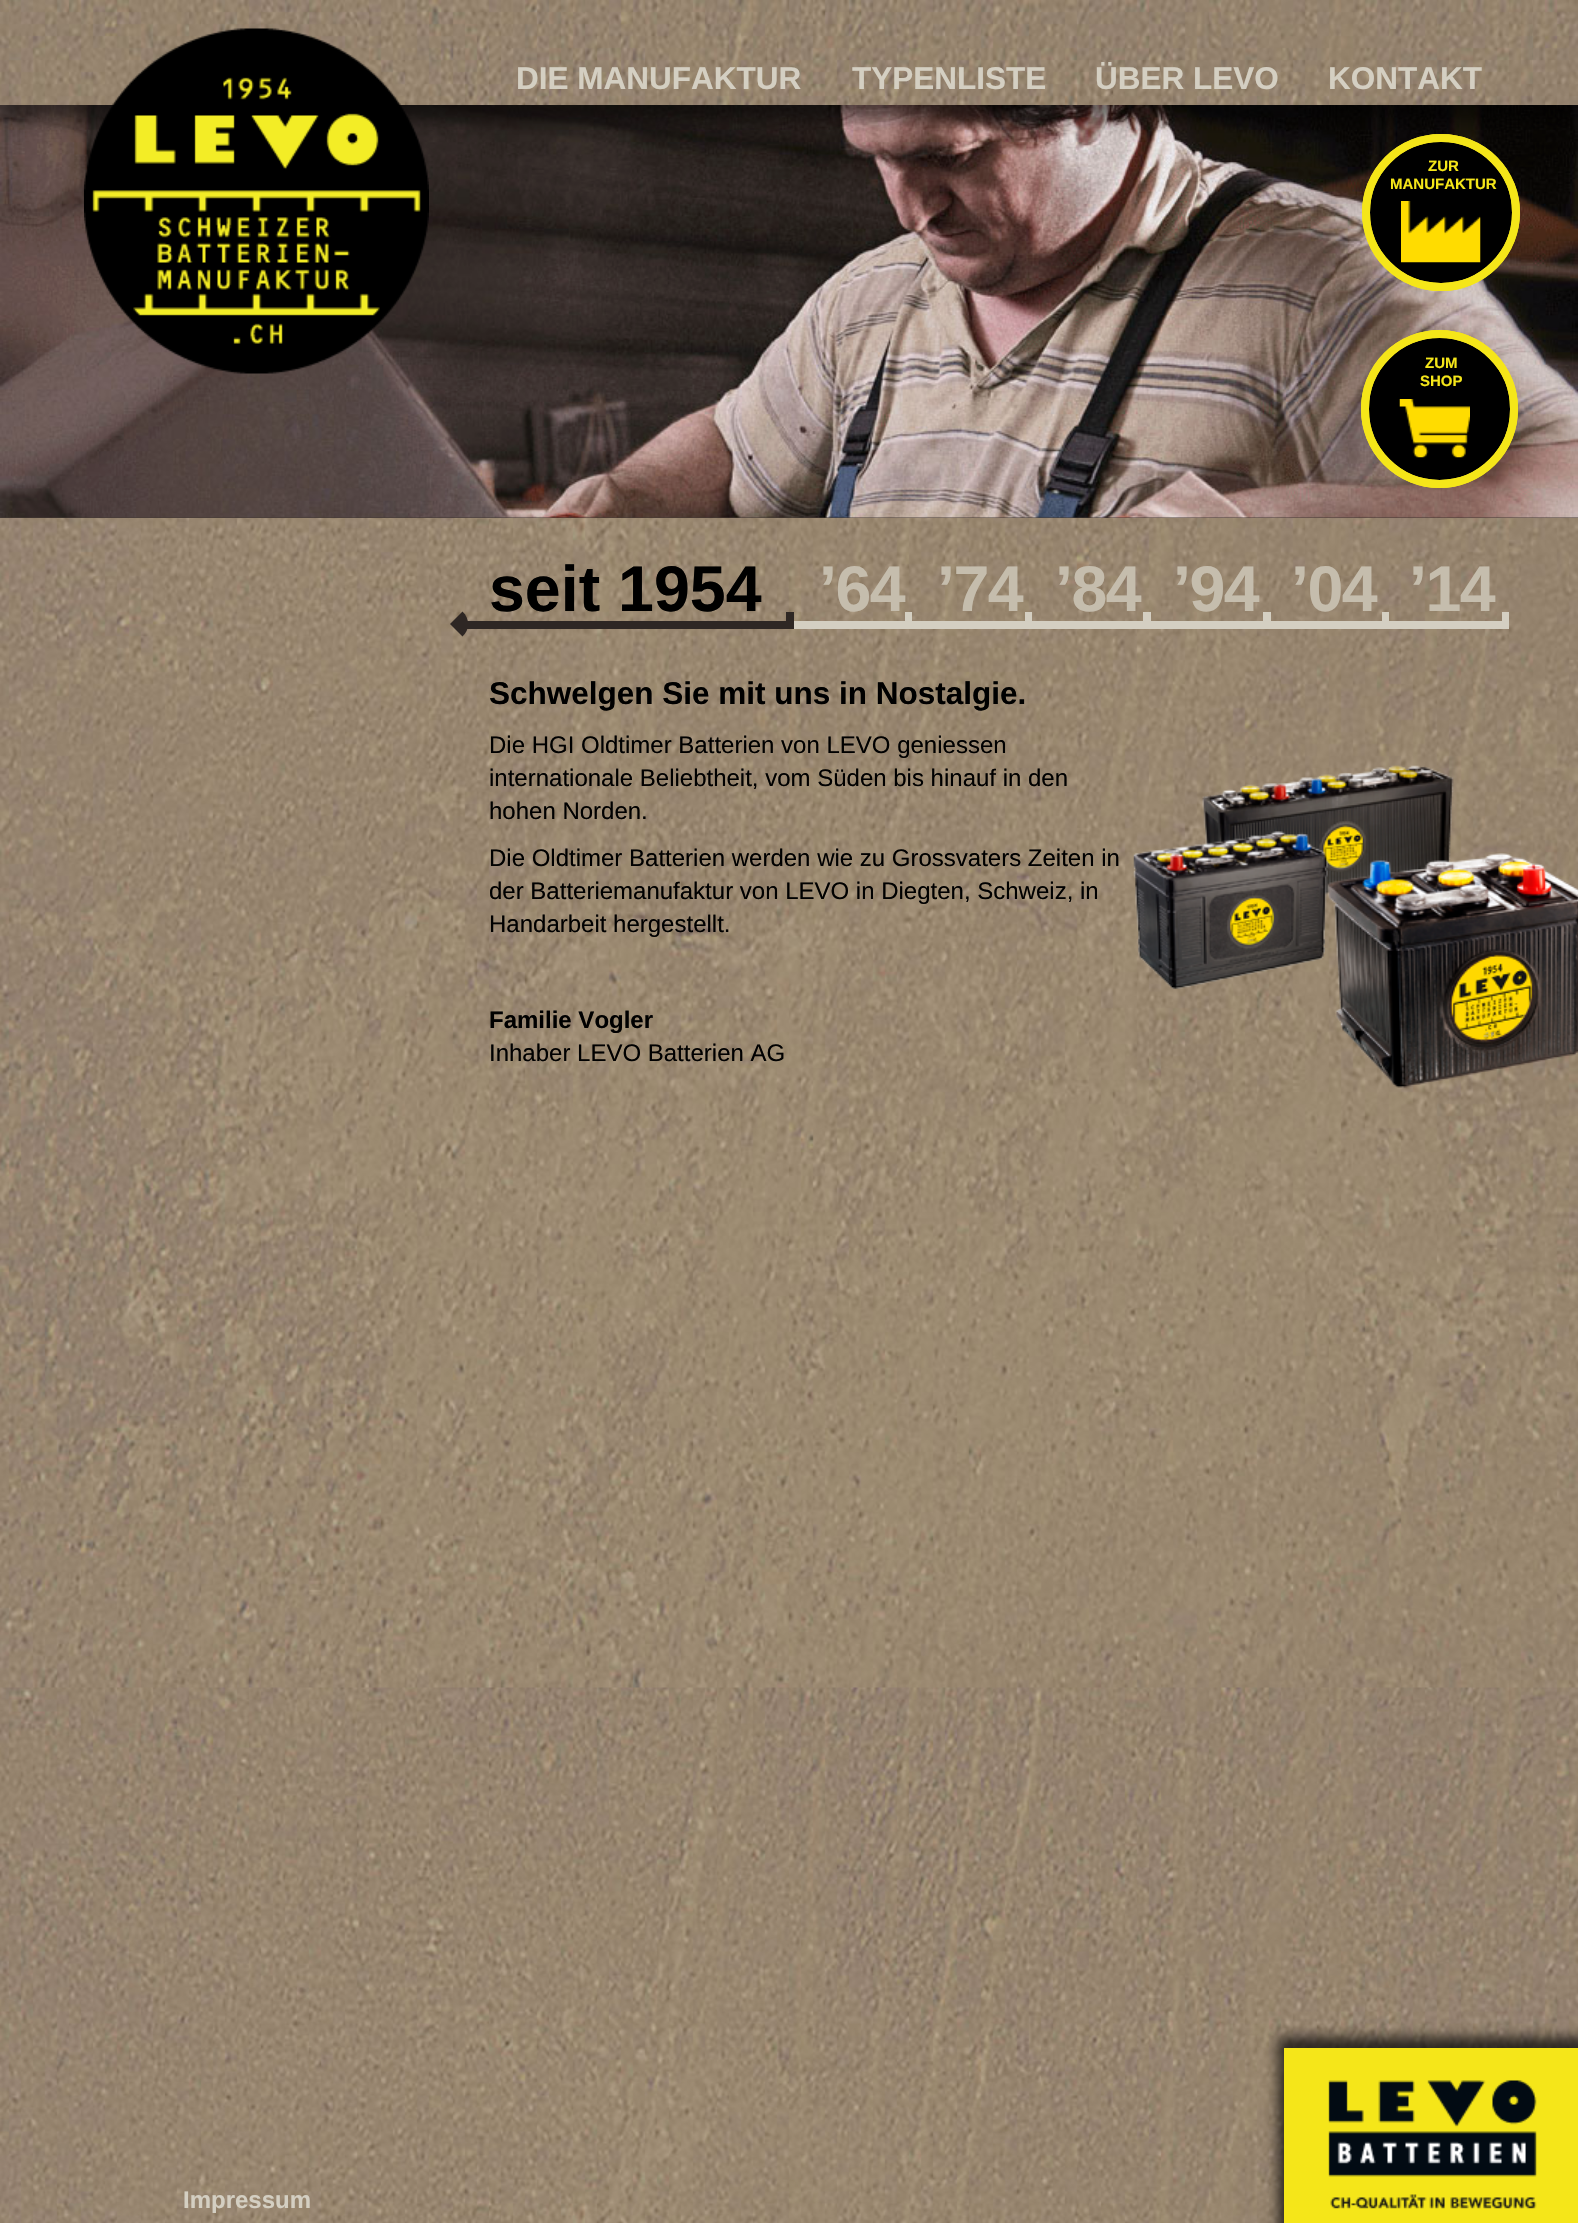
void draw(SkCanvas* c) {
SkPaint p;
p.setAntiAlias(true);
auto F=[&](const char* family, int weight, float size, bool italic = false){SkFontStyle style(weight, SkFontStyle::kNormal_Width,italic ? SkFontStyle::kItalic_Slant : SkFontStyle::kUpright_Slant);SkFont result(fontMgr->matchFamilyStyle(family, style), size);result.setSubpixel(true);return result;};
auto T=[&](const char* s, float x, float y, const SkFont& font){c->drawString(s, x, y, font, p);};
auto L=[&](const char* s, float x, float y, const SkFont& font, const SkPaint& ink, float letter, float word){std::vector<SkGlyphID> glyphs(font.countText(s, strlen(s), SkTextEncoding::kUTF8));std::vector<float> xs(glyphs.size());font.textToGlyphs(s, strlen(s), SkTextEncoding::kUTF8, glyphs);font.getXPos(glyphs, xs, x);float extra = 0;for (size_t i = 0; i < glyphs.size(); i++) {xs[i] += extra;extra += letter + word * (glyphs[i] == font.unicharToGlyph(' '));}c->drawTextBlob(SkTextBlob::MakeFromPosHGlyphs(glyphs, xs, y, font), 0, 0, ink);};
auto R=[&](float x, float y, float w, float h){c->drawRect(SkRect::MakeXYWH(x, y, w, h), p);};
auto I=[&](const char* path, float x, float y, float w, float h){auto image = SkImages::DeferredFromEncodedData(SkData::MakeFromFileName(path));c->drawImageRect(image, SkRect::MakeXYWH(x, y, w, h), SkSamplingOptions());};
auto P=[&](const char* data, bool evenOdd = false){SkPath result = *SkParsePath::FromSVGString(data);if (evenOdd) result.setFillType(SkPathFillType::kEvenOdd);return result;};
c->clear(0xffffffff);
I("1.png",0,105,1578,2118);
p.setColor(0xcc2e2724);
R(0,105,1578,413);
I("4.png",0,105,1578,413);
p.setColor(0xff000000);
c->drawRoundRect(SkRect::MakeXYWH(1366,138,150,149),74.5,74.5,p);
p.setStroke(true);
p.setStrokeWidth(8);
p.setColor(0xfff5e619);
c->drawRoundRect(SkRect::MakeXYWH(1366,138,150,149),74.5,74.5,p);
I("5.png",1401,201,80,62);
c->drawRoundRect(SkRect::MakeXYWH(1366,138,150,149),74.5,74.5,p);
p.setStroke(false);
p.setColor(0x80000000);
p.setMaskFilter(SkMaskFilter::MakeBlur(kNormal_SkBlurStyle, 7.5));
c->drawRect(SkRect::MakeXYWH(0,15,1578,105),p);
p.setMaskFilter(nullptr);
I("2.png",0,0,1578,105);
I("3.png",84,28,345,346);
auto f1 = F("Liberation Sans",700,31.5);
p.setColor(0xffd4cfc2);
T("DIE MANUFAKTUR",516,89,f1);
T("TYPENLISTE",852,89,f1);
T("ÜBER LEVO",1095,89,f1);
T("KONTAKT",1328,89,f1);
auto f2 = F("Liberation Sans",700,15);
p.setColor(0xfff5e619);
T("ZUR",1428,171,f2);
T("MANUFAKTUR",1390,189,f2);
p.setColor(0xff000000);
c->drawRoundRect(SkRect::MakeXYWH(1365,334,149,150),74.5,74.5,p);
p.setStroke(true);
p.setColor(0xfff5e619);
c->drawRoundRect(SkRect::MakeXYWH(1365,334,149,150),74.5,74.5,p);
c->drawRoundRect(SkRect::MakeXYWH(1365,334,149,150),74.5,74.5,p);
I("6.png",1399,399,71,59);
p.setStroke(false);
T("ZUM",1425,368,f2);
T("SHOP",1420,386,f2);
auto f3 = F("Liberation Sans",700,64.5);
p.setColor(0xff000000);
T("seit 1954",489,611,f3);
p.setColor(0xffd4cfc2);
R(792,621,717,8);
p.setColor(0xff2e2724);
R(459,621,335,8);
c->drawPath(P("M450 624l12.5-12.5c7.5 7 7.5 18 0 25z"),p);
R(786,612,8,14);
p.setColor(0xffc5bdad);
L("’64  ’74  ’84  ’94  ’04  ’14",819,611,f3,p,-1.5,0);
p.setColor(0xffd4cfc2);
R(905,612,7,14);
R(1025,612,7,14);
R(1143,612,8,14);
R(1263,612,8,14);
R(1382,612,7,14);
R(1502,612,7,14);
p.setColor(0xff000000);
T("Schwelgen Sie mit uns in Nostalgie.",489,704,f1);
auto f4 = F("Liberation Sans",400,24);
T("Die HGI Oldtimer Batterien von LEVO geniessen",489,753,f4);
T("internationale Beliebtheit, vom Süden bis hinauf in den",489,786,f4);
T("hohen Norden.",489,819,f4);
T("Die Oldtimer Batterien werden wie zu Grossvaters Zeiten in",489,866,f4);
T("der Batteriemanufaktur von LEVO in Diegten, Schweiz, in",489,899,f4);
T("Handarbeit hergestellt.",489,932,f4);
auto f5 = F("Liberation Sans",700,24);
T("Familie Vogler",489,1028,f5);
T("Inhaber LEVO Batterien AG",489,1061,f4);
I("7.png",1133,765,445,323);
p.setColor(0xffd4cfc2);
T("Impressum",183,2208,f5);
p.setColor(0xb3000000);
p.setMaskFilter(SkMaskFilter::MakeBlur(kNormal_SkBlurStyle, 6));
c->drawRect(SkRect::MakeXYWH(1278,2037,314,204),p);
p.setMaskFilter(nullptr);
p.setColor(0xfff5e619);
R(1284,2048,294,175);
I("8.png",1328,2080,209,129);
}
